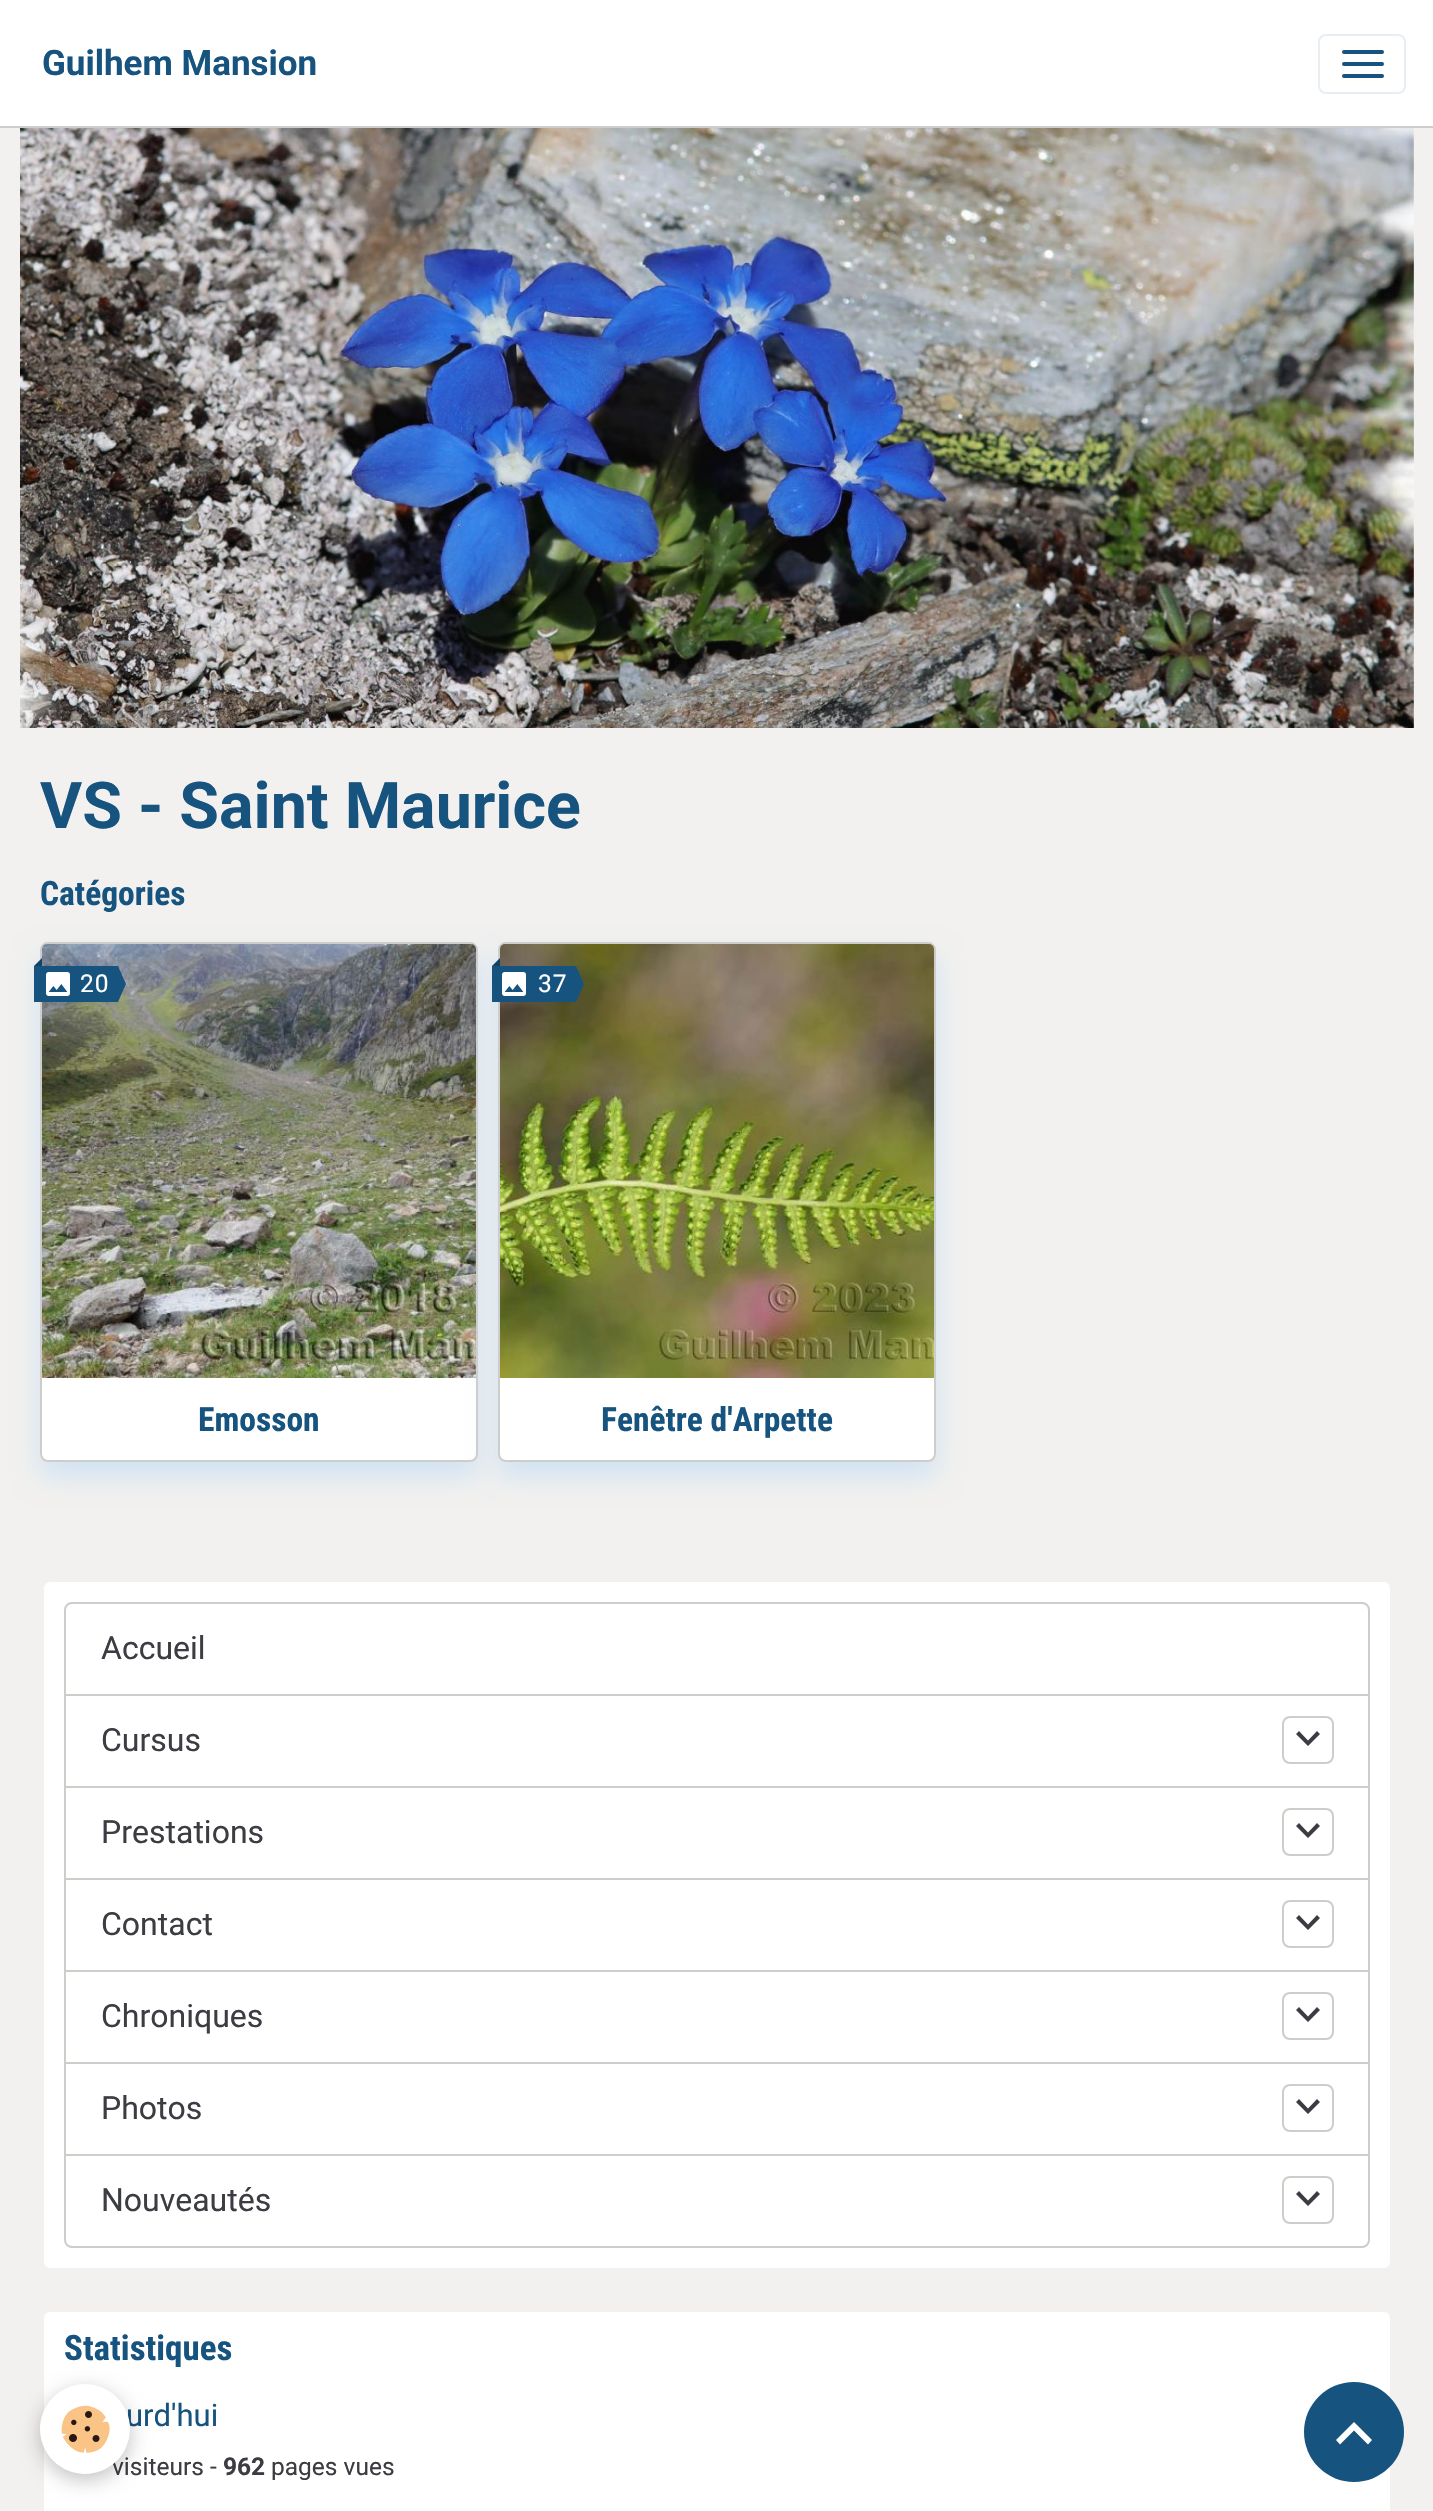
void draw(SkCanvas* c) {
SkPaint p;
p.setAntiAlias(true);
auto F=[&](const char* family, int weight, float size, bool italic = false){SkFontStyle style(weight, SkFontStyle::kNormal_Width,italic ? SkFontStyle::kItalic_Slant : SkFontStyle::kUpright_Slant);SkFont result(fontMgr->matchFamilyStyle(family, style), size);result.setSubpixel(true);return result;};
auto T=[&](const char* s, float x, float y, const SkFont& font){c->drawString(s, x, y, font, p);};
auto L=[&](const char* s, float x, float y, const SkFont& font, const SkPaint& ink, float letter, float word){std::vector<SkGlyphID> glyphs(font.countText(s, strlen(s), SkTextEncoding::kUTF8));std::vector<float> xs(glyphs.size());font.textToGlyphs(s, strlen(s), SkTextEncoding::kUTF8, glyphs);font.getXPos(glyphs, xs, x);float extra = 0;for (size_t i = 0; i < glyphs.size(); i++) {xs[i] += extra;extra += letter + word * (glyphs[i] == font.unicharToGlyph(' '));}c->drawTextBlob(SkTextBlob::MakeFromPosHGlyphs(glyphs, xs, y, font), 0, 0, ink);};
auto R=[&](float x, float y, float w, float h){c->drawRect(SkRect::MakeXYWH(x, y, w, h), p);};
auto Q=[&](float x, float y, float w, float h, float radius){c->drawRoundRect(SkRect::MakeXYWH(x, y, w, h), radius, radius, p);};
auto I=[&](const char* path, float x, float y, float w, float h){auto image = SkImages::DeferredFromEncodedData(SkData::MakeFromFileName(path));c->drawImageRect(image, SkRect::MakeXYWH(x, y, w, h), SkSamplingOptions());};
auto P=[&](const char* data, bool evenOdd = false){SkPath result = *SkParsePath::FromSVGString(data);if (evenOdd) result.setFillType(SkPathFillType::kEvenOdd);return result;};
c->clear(0xfff2f1ef);
p.setColor(0xffffffff);
R(0,0,1433,126);
p.setColor(0xffcfcdc9);
R(0,126,1433,2);
auto f1 = F("Roboto",700,35);
p.setColor(0xff16537e);
T("Guilhem Mansion",42,75,f1);
p.setStroke(true);
p.setStrokeWidth(2);
p.setColor(0xffe8eef2);
c->drawRoundRect(SkRect::MakeXYWH(1319,35,86,58),7,7,p);
p.setStroke(false);
p.setColor(0xff16537e);
Q(1342,50,42,4,2);
Q(1342,62,42,4,2);
Q(1342,74,42,4,2);
I("1.png",20,128,1394,600);
auto f2 = F("Roboto",700,64.5);
T("VS - Saint Maurice",40,828,f2);
auto f3 = F("Roboto Condensed",700,33.5);
T("Catégories",40,905,f3);
p.setColor(0xffcfe2f3);
p.setMaskFilter(SkMaskFilter::MakeBlur(kNormal_SkBlurStyle, 14));
c->drawRoundRect(SkRect::MakeXYWH(40,956,438,520),8,8,p);
p.setMaskFilter(nullptr);
p.setColor(0xffffffff);
c->drawRoundRect(SkRect::MakeXYWH(41,943,436,518),7,7,p);
p.setStroke(true);
p.setColor(0xffcfcdc9);
c->drawRoundRect(SkRect::MakeXYWH(41,943,436,518),7,7,p);
I("2.png",42,944,434,434);
p.setStroke(false);
p.setColor(0xff16537e);
R(34,966,84,36);
p.setColor(0xff124265);
c->drawPath(P("M42 966h-8l8-8z"),p);
I("3.png",46,972,24,24);
auto f4 = F("Roboto",400,24.5);
p.setColor(0xffffffff);
L("20",80,992,f4,p,1,0);
p.setColor(0xff16537e);
c->drawPath(P("M118 1002v-36l8 18z"),p);
T("Emosson",198,1431,f3);
p.setColor(0xffcfe2f3);
p.setMaskFilter(SkMaskFilter::MakeBlur(kNormal_SkBlurStyle, 14));
c->drawRoundRect(SkRect::MakeXYWH(498,956,438,520),8,8,p);
p.setMaskFilter(nullptr);
p.setColor(0xffffffff);
c->drawRoundRect(SkRect::MakeXYWH(499,943,436,518),7,7,p);
p.setStroke(true);
p.setColor(0xffcfcdc9);
c->drawRoundRect(SkRect::MakeXYWH(499,943,436,518),7,7,p);
I("4.png",500,944,434,434);
p.setStroke(false);
p.setColor(0xff16537e);
R(492,966,84,36);
p.setColor(0xff124265);
c->drawPath(P("M500 966h-8l8-8z"),p);
I("3.png",502,972,24,24);
p.setColor(0xffffffff);
L("37",538,992,f4,p,1,0);
p.setColor(0xff16537e);
c->drawPath(P("M576 1002v-36l8 18z"),p);
T("Fenêtre d'Arpette",601,1431,f3);
p.setColor(0xffffffff);
c->drawRoundRect(SkRect::MakeXYWH(43,1581,1348,688),7,7,p);
p.setStroke(true);
p.setColor(0xfff2f1ef);
c->drawRoundRect(SkRect::MakeXYWH(43,1581,1348,688),7,7,p);
p.setColor(0xffcfcdc9);
c->drawPath(P("M72 1603h1290c4 0 7 3 7 7v85h-1304v-85c0-4 3-7 7-7z"),p);
auto f5 = F("Roboto",400,32);
p.setStroke(false);
p.setColor(0xff3b3d42);
T("Accueil",101,1659,f5);
p.setStroke(true);
p.setColor(0xffcfcdc9);
c->drawRect(SkRect::MakeXYWH(65,1695,1304,92),p);
p.setStroke(false);
p.setColor(0xff3b3d42);
T("Cursus",101,1751,f5);
p.setStroke(true);
p.setColor(0xffcfcdc9);
c->drawRoundRect(SkRect::MakeXYWH(1283,1717,50,46),7,7,p);
p.setStroke(false);
p.setColor(0xff3b3d42);
c->drawPath(P("M1317 1731l3 3l-12 12l-12-12l3-3l9 9.5z"),p);
p.setStroke(true);
p.setColor(0xffcfcdc9);
c->drawRect(SkRect::MakeXYWH(65,1787,1304,92),p);
p.setStroke(false);
p.setColor(0xff3b3d42);
T("Prestations",101,1843,f5);
p.setStroke(true);
p.setColor(0xffcfcdc9);
c->drawRoundRect(SkRect::MakeXYWH(1283,1809,50,46),7,7,p);
p.setStroke(false);
p.setColor(0xff3b3d42);
c->drawPath(P("M1317 1823l3 3l-12 12l-12-12l3-3l9 9.5z"),p);
p.setStroke(true);
p.setColor(0xffcfcdc9);
c->drawRect(SkRect::MakeXYWH(65,1879,1304,92),p);
p.setStroke(false);
p.setColor(0xff3b3d42);
T("Contact",101,1935,f5);
p.setStroke(true);
p.setColor(0xffcfcdc9);
c->drawRoundRect(SkRect::MakeXYWH(1283,1901,50,46),7,7,p);
p.setStroke(false);
p.setColor(0xff3b3d42);
c->drawPath(P("M1317 1915l3 3l-12 12l-12-12l3-3l9 9.5z"),p);
p.setStroke(true);
p.setColor(0xffcfcdc9);
c->drawRect(SkRect::MakeXYWH(65,1971,1304,92),p);
p.setStroke(false);
p.setColor(0xff3b3d42);
T("Chroniques",101,2027,f5);
p.setStroke(true);
p.setColor(0xffcfcdc9);
c->drawRoundRect(SkRect::MakeXYWH(1283,1993,50,46),7,7,p);
p.setStroke(false);
p.setColor(0xff3b3d42);
c->drawPath(P("M1317 2007l3 3l-12 12l-12-12l3-3l9 9.5z"),p);
p.setStroke(true);
p.setColor(0xffcfcdc9);
c->drawRect(SkRect::MakeXYWH(65,2063,1304,92),p);
p.setStroke(false);
p.setColor(0xff3b3d42);
T("Photos",101,2119,f5);
p.setStroke(true);
p.setColor(0xffcfcdc9);
c->drawRoundRect(SkRect::MakeXYWH(1283,2085,50,46),7,7,p);
p.setStroke(false);
p.setColor(0xff3b3d42);
c->drawPath(P("M1317 2099l3 3l-12 12l-12-12l3-3l9 9.5z"),p);
p.setStroke(true);
p.setColor(0xffcfcdc9);
c->drawPath(P("M65 2155h1304v85c0 4-3 7-7 7h-1290c-4 0-7-3-7-7z"),p);
p.setStroke(false);
p.setColor(0xff3b3d42);
T("Nouveautés",101,2211,f5);
p.setStroke(true);
p.setColor(0xffcfcdc9);
c->drawRoundRect(SkRect::MakeXYWH(1283,2177,50,46),7,7,p);
p.setStroke(false);
p.setColor(0xff3b3d42);
c->drawPath(P("M1317 2191l3 3l-12 12l-12-12l3-3l9 9.5z"),p);
p.setColor(0xffffffff);
c->drawRoundRect(SkRect::MakeXYWH(43,2311,1348,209),7,7,p);
p.setStroke(true);
p.setColor(0xfff2f1ef);
c->drawRoundRect(SkRect::MakeXYWH(43,2311,1348,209),7,7,p);
auto f6 = F("Roboto Condensed",700,35);
p.setStroke(false);
p.setColor(0xff16537e);
T("Statistiques",64,2360,f6);
auto f7 = F("Roboto",400,31);
T("urd'hui",126,2426,f7);
p.setColor(0xff3b3d42);
T("visiteurs -",112,2475,f4);
auto f8 = F("Roboto",700,24.5);
T("962",223,2475,f8);
T("pages vues",271,2475,f4);
p.setColor(0x3d000000);
p.setMaskFilter(SkMaskFilter::MakeBlur(kNormal_SkBlurStyle, 10));
c->drawRoundRect(SkRect::MakeXYWH(40,2390,90,90),45,45,p);
p.setMaskFilter(nullptr);
p.setColor(0xffffffff);
c->drawCircle(85,2429,45,p);
I("5.png",61,2405,49,48);
p.setColor(0xff16537e);
c->drawCircle(1354,2432,50,p);
p.setColor(0xffffffff);
c->drawPath(P("M1354 2422l18 18l-4 4.5l-14-14l-14 14l-4-4.5z"),p);
}
